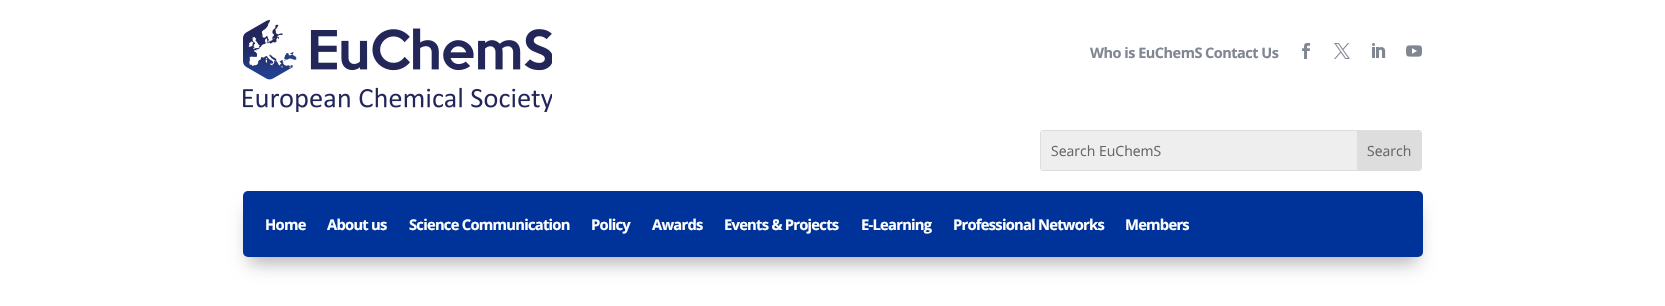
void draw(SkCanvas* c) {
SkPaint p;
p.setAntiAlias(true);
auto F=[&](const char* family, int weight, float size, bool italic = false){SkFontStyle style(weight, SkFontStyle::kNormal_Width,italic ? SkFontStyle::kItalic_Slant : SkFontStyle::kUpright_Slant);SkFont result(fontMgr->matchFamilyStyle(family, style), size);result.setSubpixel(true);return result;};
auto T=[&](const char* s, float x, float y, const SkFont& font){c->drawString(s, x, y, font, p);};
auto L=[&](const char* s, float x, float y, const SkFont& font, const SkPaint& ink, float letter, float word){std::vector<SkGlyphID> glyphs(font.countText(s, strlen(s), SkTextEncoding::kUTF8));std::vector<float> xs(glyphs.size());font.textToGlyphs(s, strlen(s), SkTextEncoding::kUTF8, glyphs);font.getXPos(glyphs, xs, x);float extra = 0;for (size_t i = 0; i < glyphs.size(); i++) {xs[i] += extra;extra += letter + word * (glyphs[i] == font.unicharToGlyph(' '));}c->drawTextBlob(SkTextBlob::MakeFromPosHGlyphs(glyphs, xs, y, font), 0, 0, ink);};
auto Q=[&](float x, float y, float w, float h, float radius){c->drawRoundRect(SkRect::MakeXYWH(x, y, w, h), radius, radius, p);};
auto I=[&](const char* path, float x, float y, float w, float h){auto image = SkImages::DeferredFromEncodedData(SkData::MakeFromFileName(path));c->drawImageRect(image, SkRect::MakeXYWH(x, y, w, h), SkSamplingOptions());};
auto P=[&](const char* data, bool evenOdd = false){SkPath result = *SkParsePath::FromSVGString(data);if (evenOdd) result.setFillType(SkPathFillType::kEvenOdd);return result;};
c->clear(0xffffffff);
I("1.png",243,20,309,92);
auto f1 = F("Open Sans",700,14.5);
p.setColor(0xff808692);
L("Who is EuChemS",1090,58,f1,p,-.5,0);
L("Contact Us",1205,58,f1,p,-.5,0);
I("2.png",1302,43,8,16);
I("3.png",1334,43,16,16);
I("4.png",1372,43,14,15);
I("5.png",1406,45,16,12);
p.setStroke(true);
p.setStrokeWidth(1);
p.setColor(0xffdddddd);
c->drawRoundRect(SkRect::MakeXYWH(1040.5,130.5,381,40),2.5,2.5,p);
p.setStroke(false);
p.setColor(0xffeeeeee);
c->drawPath(P("M1043 131h314v39h-314c-1 0-2-1-2-2v-35c0-1 1-2 2-2z"),p);
auto f2 = F("Open Sans",400,14);
p.setColor(0xff666666);
T("Search EuChemS",1051,156,f2);
p.setColor(0xffdddddd);
c->drawPath(P("M1357 131h62c1 0 2 1 2 2v35c0 1-1 2-2 2h-62z"),p);
p.setColor(0xff666666);
T("Search",1367,156,f2);
p.setColor(0x4d000000);
p.setMaskFilter(SkMaskFilter::MakeBlur(kNormal_SkBlurStyle, 9));
c->drawRect(SkRect::MakeXYWH(249,209,1168,54),p);
p.setMaskFilter(nullptr);
p.setColor(0xff003399);
Q(243,191,1180,66,5);
auto f3 = F("Open Sans",700,14.75);
p.setColor(0xffffffff);
L("Home",265,230,f3,p,-.75,0);
L("About us",327,230,f3,p,-.75,0);
L("Science Communication",409,230,f3,p,-.75,0);
L("Policy",591,230,f3,p,-.75,0);
L("Awards",652,230,f3,p,-.75,0);
L("Events & Projects",724,230,f3,p,-.75,0);
L("E-Learning",861,230,f3,p,-.75,0);
L("Professional Networks",953,230,f3,p,-.75,0);
L("Members",1125,230,f3,p,-.75,0);
}
